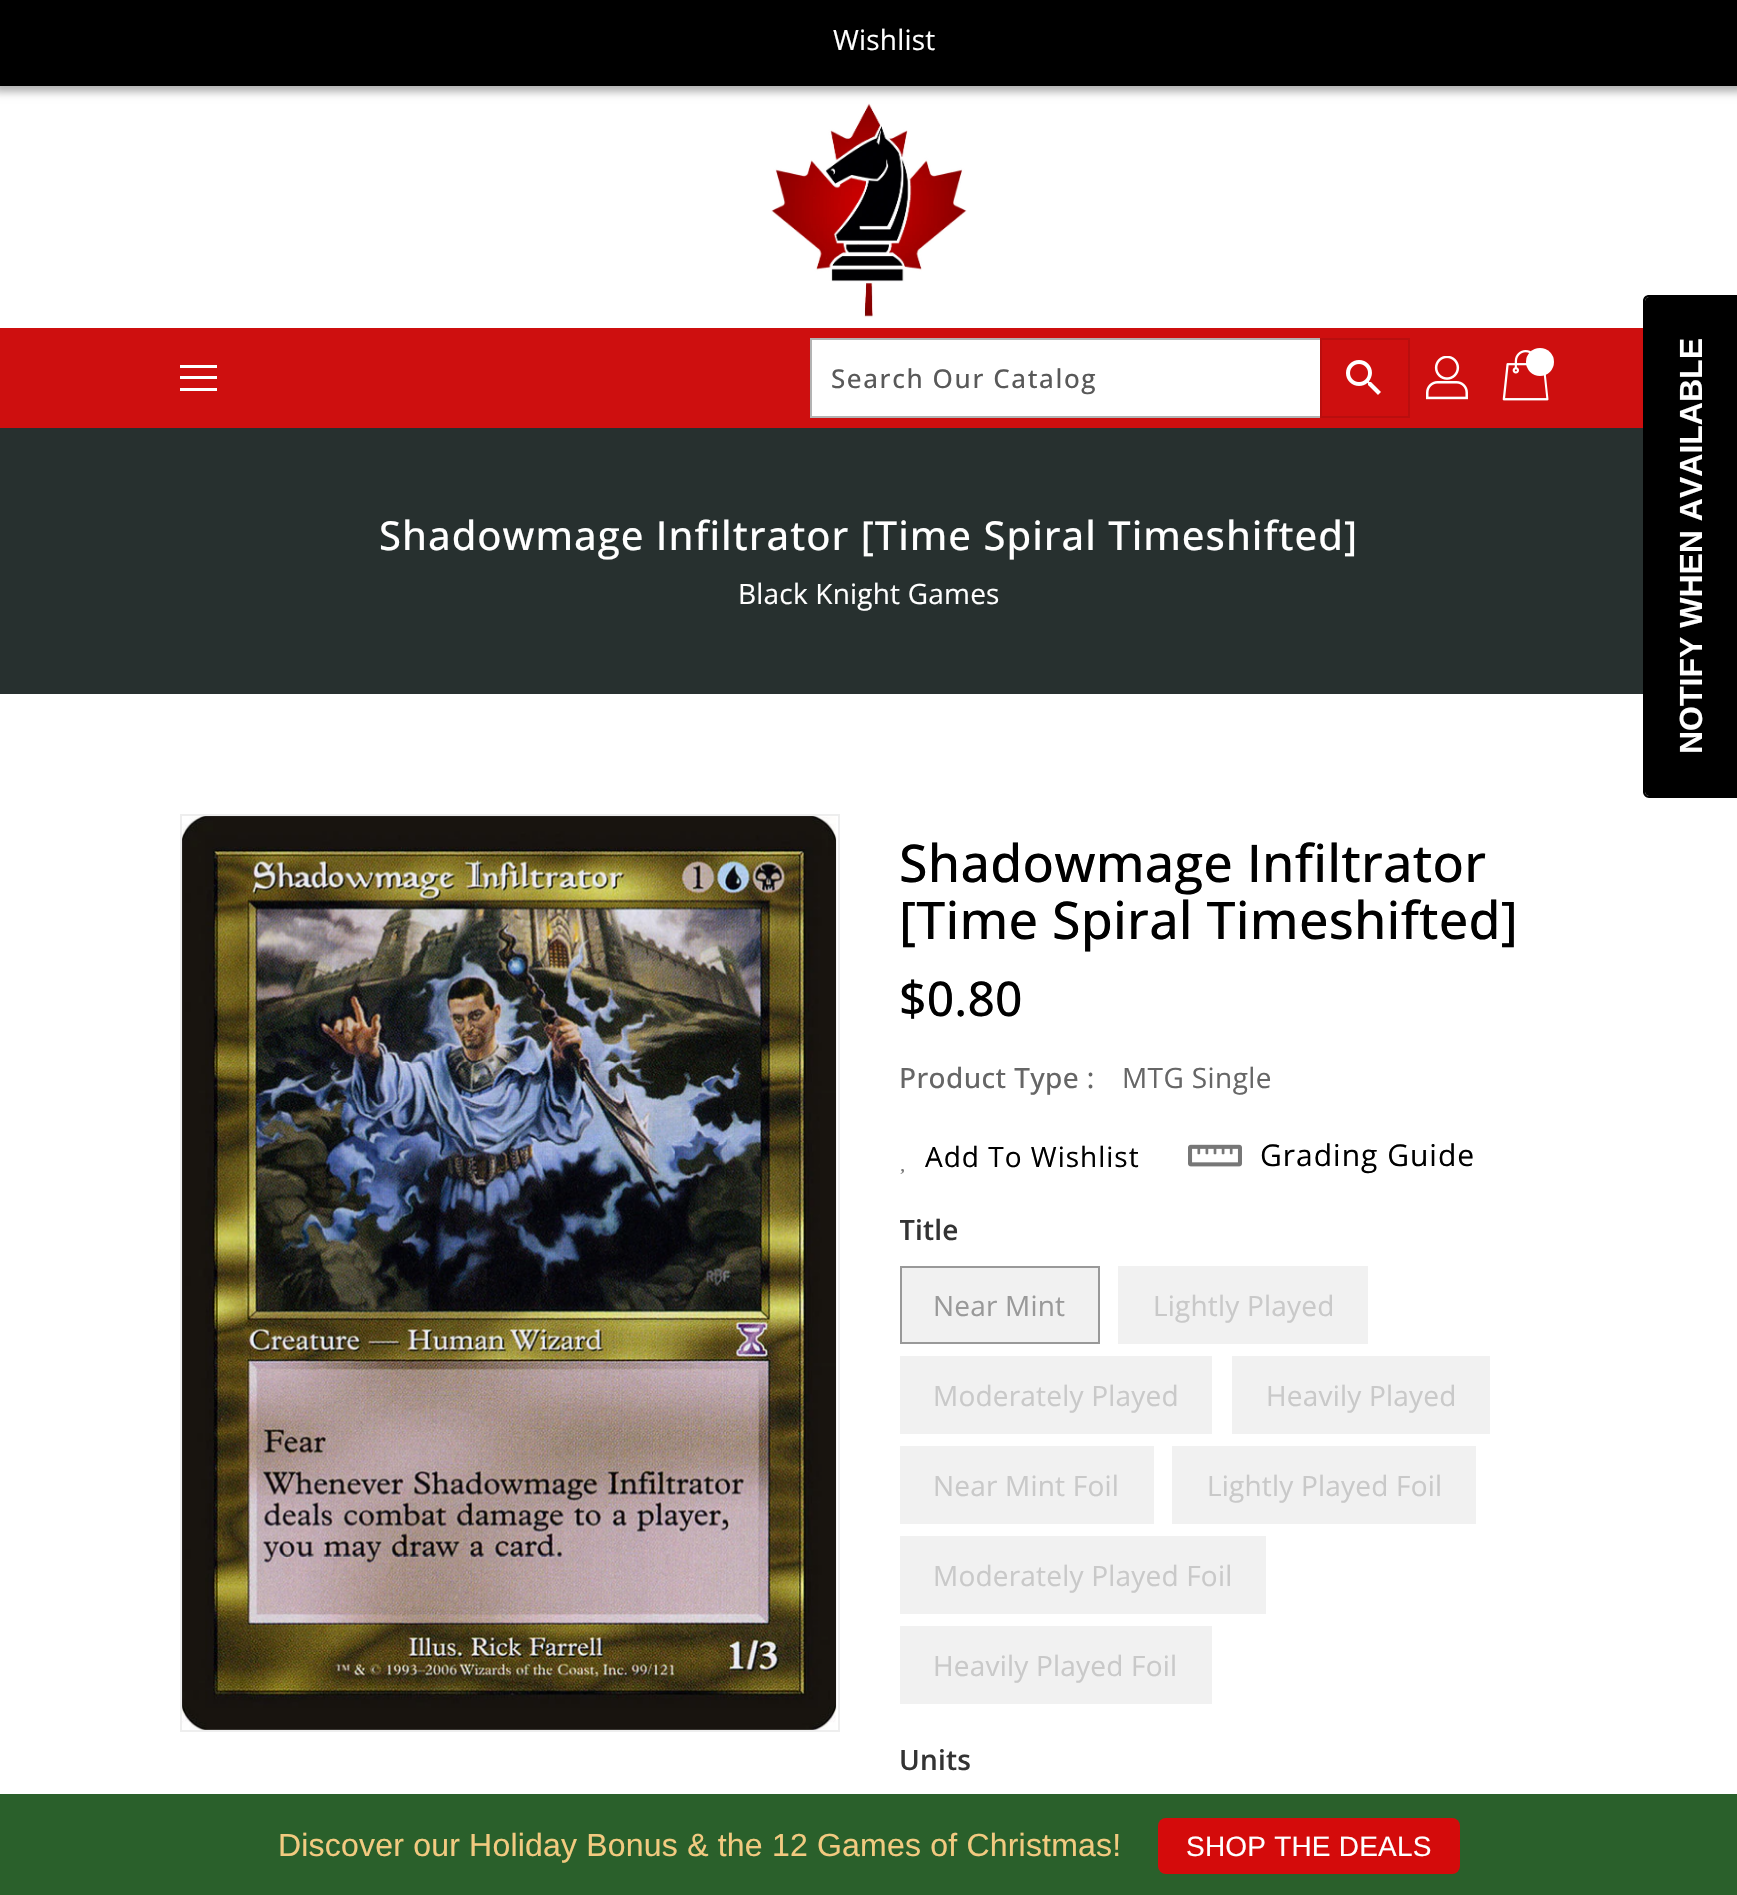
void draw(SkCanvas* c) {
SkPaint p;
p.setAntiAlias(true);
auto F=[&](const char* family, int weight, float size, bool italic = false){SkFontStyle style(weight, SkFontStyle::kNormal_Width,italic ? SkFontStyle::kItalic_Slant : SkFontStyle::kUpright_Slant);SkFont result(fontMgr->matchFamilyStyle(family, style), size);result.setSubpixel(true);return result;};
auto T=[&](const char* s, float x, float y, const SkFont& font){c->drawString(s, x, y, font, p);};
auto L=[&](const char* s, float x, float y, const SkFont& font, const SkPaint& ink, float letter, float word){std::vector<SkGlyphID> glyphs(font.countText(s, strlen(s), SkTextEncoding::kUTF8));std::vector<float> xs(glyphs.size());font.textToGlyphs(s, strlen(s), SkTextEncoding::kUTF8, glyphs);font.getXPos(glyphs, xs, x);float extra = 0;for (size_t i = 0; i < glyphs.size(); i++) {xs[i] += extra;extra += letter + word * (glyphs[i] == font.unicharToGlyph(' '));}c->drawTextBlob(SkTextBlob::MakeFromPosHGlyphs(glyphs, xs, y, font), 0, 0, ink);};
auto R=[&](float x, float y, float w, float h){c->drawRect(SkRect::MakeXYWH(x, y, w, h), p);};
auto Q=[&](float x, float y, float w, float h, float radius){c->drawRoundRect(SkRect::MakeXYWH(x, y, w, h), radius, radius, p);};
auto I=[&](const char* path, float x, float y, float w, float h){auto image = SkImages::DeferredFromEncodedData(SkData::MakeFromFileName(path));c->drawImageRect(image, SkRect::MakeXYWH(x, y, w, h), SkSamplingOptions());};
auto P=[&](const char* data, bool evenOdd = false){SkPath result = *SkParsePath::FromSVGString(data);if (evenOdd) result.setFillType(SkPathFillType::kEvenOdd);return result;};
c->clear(0xffffffff);
p.setColor(0x4d000000);
p.setMaskFilter(SkMaskFilter::MakeBlur(kNormal_SkBlurStyle, 4));
c->drawRect(SkRect::MakeXYWH(-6,-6,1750,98),p);
p.setMaskFilter(nullptr);
p.setColor(0xff000000);
R(0,0,1737,86);
auto f1 = F("Open Sans",400,28);
p.setColor(0xffffffff);
L("Wishlist",833,50,f1,p,.2,0);
I("1.png",771,103,196,215);
p.setColor(0xffce0f0f);
R(0,328,1643,100);
p.setColor(0xffffffff);
R(180,365,37,3);
R(180,376,37,3);
R(180,388,37,3);
R(812,340,508,76);
p.setStroke(true);
p.setStrokeWidth(2);
p.setColor(0xffb3b3b3);
c->drawRect(SkRect::MakeXYWH(811,339,598,78),p);
auto f2 = F("Open Sans",500,26);
p.setStroke(false);
p.setColor(0xff595959);
L("Search Our Catalog",831,388,f2,p,1.6,0);
p.setStroke(true);
p.setColor(0xffb90e0e);
c->drawRect(SkRect::MakeXYWH(1321,339,88,78),p);
I("2.png",1346,360,35,35);
I("3.png",1426,356,42,44);
I("4.png",1502,350,47,51);
p.setStroke(false);
p.setColor(0xffffffff);
c->drawCircle(1540,362,14,p);
p.setColor(0xff27302f);
R(0,428,1643,266);
auto f3 = F("Open Sans",500,40);
p.setColor(0xffffffff);
L("Shadowmage Infiltrator [Time Spiral Timeshifted]",379,550,f3,p,1,0);
L("Black Knight Games",738,604,f1,p,.2,0);
p.setStroke(true);
p.setColor(0xffeeeeee);
c->drawRect(SkRect::MakeXYWH(181,815,658,916),p);
I("5.png",182,816,655,914);
auto f4 = F("Open Sans",500,52);
p.setStroke(false);
p.setColor(0xff000000);
L("Shadowmage Infiltrator",899,882,f4,p,.2,0);
L("[Time Spiral Timeshifted]",899,939,f4,p,.2,0);
auto f5 = F("Open Sans",500,48);
L("$0.80",899,1016,f5,p,.2,0);
auto f6 = F("Open Sans",500,28);
p.setColor(0xff666666);
L("Product Type :",899,1088,f6,p,.4,0);
L("MTG Single",1122,1088,f1,p,.4,0);
p.setColor(0xff000000);
L("Add To Wishlist",925,1167,f1,p,1,0);
I("6.png",900,1169,4,5);
I("7.png",1188,1144,54,23);
auto f7 = F("Open Sans",400,30);
L("Grading Guide",1260,1166,f7,p,1,0);
c->save();
c->clipRect(SkRect::MakeXYWH(900,1208,650,508));
auto f8 = F("Open Sans",600,28);
p.setColor(0xff333333);
L("Title",899,1240,f8,p,.2,0);
c->restore();
p.setColor(0xfff1f1f1);
c->drawRect(SkRect::MakeXYWH(901,1267,198,76),p);
p.setStroke(true);
p.setColor(0xff999999);
c->drawRect(SkRect::MakeXYWH(901,1267,198,76),p);
p.setStroke(false);
L("Near Mint",933,1316,f1,p,.2,0);
p.setColor(0xfff1f1f1);
R(1118,1266,250,78);
p.setColor(0xffc9c9c9);
L("Lightly Played",1153,1316,f1,p,.2,0);
p.setColor(0xfff1f1f1);
R(900,1356,312,78);
p.setColor(0xffc9c9c9);
L("Moderately Played",933,1406,f1,p,.2,0);
p.setColor(0xfff1f1f1);
R(1232,1356,258,78);
p.setColor(0xffc9c9c9);
L("Heavily Played",1266,1406,f1,p,.2,0);
p.setColor(0xfff1f1f1);
R(900,1446,254,78);
p.setColor(0xffc9c9c9);
L("Near Mint Foil",933,1496,f1,p,.2,0);
p.setColor(0xfff1f1f1);
R(1172,1446,304,78);
p.setColor(0xffc9c9c9);
L("Lightly Played Foil",1207,1496,f1,p,.2,0);
p.setColor(0xfff1f1f1);
R(900,1536,366,78);
p.setColor(0xffc9c9c9);
L("Moderately Played Foil",933,1586,f1,p,.2,0);
p.setColor(0xfff1f1f1);
R(900,1626,312,78);
p.setColor(0xffc9c9c9);
L("Heavily Played Foil",933,1676,f1,p,.2,0);
p.setColor(0xff333333);
L("Units",899,1770,f8,p,.2,0);
p.setColor(0xff000000);
c->drawPath(P("M1645 792v-491c0-2 2-4 4-4h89v499h-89c-2 0-4-2-4-4z"),p);
c->drawPath(P("M1643 792v-491c0-4 3-6 6-6h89v503h-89c-3 0-6-3-6-6zm2 0v-491c0-2 2-4 4-4h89v499h-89c-2 0-4-2-4-4z",true),p);
auto f9 = F("Liberation Sans",700,32);
p.setColor(0xffffffff);
c->save();
c->rotate(-90,1702,754);
T("NOTIFY WHEN AVAILABLE",1702,754,f9);
c->restore();
p.setColor(0xff2a602b);
R(0,1794,1737,101);
auto f10 = F("Liberation Sans",400,32);
p.setColor(0xfff2ca80);
L("Discover our Holiday Bonus & the 12 Games of Christmas!",278,1856,f10,p,.2,0);
p.setColor(0xffd40b0b);
Q(1158,1818,302,56,8);
auto f11 = F("Liberation Sans",400,28);
p.setColor(0xffffffff);
L("SHOP THE DEALS",1186,1856,f11,p,.2,0);
}
